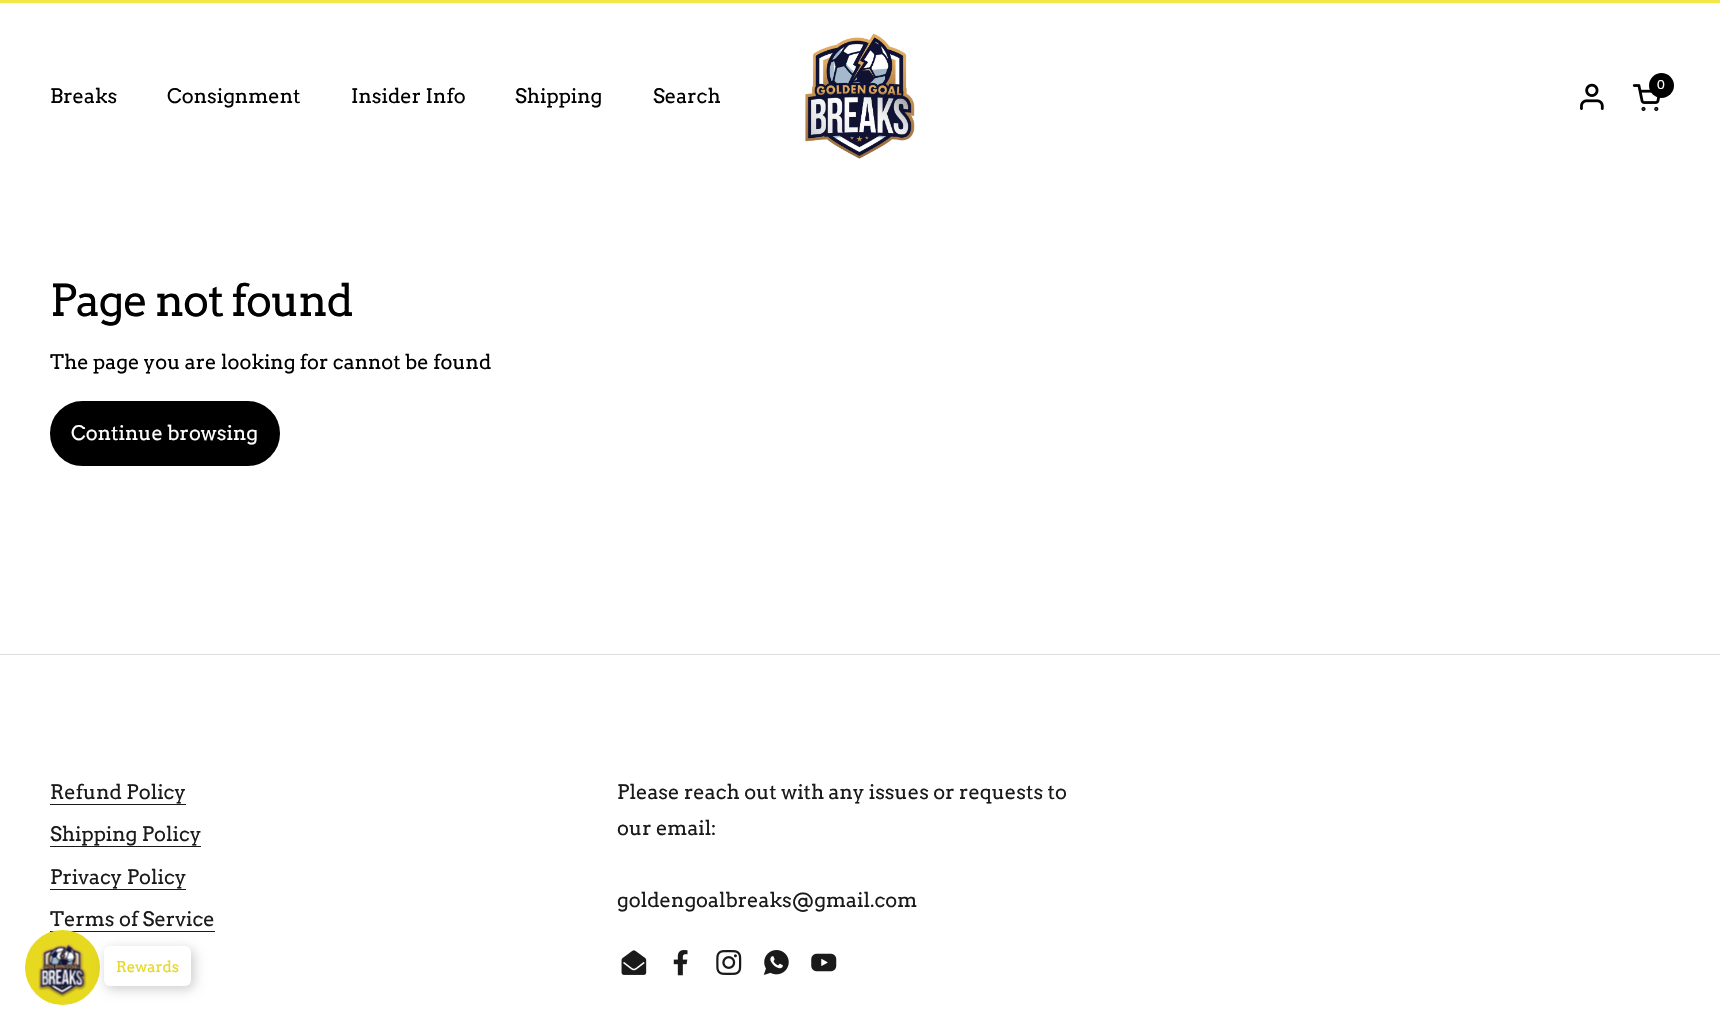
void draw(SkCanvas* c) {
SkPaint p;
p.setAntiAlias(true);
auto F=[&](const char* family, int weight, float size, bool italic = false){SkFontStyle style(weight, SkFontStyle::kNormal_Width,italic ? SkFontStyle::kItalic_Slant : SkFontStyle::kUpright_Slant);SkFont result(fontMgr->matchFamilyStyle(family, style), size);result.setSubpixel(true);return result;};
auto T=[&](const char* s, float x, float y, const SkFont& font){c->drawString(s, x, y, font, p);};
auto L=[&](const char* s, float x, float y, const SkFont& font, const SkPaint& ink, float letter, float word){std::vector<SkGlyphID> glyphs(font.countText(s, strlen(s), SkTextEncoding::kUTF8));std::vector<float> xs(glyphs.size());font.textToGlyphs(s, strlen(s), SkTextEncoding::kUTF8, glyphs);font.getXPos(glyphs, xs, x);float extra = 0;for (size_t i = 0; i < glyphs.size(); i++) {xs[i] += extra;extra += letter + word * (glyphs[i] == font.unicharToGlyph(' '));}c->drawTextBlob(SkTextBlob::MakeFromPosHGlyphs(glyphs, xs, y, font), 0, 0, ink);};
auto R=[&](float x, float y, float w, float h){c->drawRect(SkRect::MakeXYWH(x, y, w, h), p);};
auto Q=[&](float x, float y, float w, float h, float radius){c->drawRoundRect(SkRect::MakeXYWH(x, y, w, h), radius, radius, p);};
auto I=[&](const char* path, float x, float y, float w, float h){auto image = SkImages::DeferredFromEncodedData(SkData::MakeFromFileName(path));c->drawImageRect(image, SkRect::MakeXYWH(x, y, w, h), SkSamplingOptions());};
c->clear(0xffffffff);
p.setColor(0xfff3e849);
R(0,0,1720,3);
auto f1 = F("Arvo",400,20);
p.setColor(0xff000000);
T("Breaks",50,103,f1);
T("Consignment",167,103,f1);
T("Insider Info",351,103,f1);
T("Shipping",515,103,f1);
T("Search",653,103,f1);
I("1.png",805,33,110,126);
I("2.png",1580,83,24,27);
c->drawCircle(1661.5,85.5,12.5,p);
auto f2 = F("Arvo",400,12);
p.setColor(0xffffffff);
T("0",1657,89,f2);
I("3.png",1632,84,28,28);
auto f3 = F("Arvo",400,43.75);
p.setColor(0xff000000);
L("Page not found",50,316,f3,p,-1.25,0);
T("The page you are looking for cannot be found",50,369,f1);
c->drawRoundRect(SkRect::MakeXYWH(51.5,402.5,227,62),31,31,p);
p.setStroke(true);
p.setStrokeWidth(3);
c->drawRoundRect(SkRect::MakeXYWH(51.5,402.5,227,62),31,31,p);
p.setStroke(false);
p.setColor(0xffffffff);
T("Continue browsing",71,440,f1);
p.setColor(0xffdddddd);
R(0,654,1720,1);
p.setColor(0xff1b1a1a);
T("Refund Policy",50,799,f1);
R(50,804,136,1);
T("Shipping Policy",50,841,f1);
R(50,846,151,1);
T("Privacy Policy",50,884,f1);
R(50,889,136,1);
T("Terms of Service",50,926,f1);
R(50,931,165,1);
T("Please reach out with any issues or requests to",617,799,f1);
T("our email:",617,835,f1);
T("goldengoalbreaks@gmail.com",617,907,f1);
I("4.png",621,950,26,25);
I("5.png",673,950,15,26);
I("6.png",716,950,26,25);
I("7.png",763,950,26,25);
I("8.png",811,953,26,19);
p.setColor(0xffe6d920);
c->drawCircle(62.5,967.5,37.5,p);
I("9.png",38,943,49,55);
p.setColor(0x33000000);
p.setMaskFilter(SkMaskFilter::MakeBlur(kNormal_SkBlurStyle, 6));
c->drawRoundRect(SkRect::MakeXYWH(106,949,88,40),6,6,p);
p.setMaskFilter(nullptr);
p.setColor(0xffffffff);
Q(104,946,87,40,6);
auto f4 = F("Arvo",400,15);
p.setColor(0xffe6d920);
T("Rewards",116,972,f4);
}
